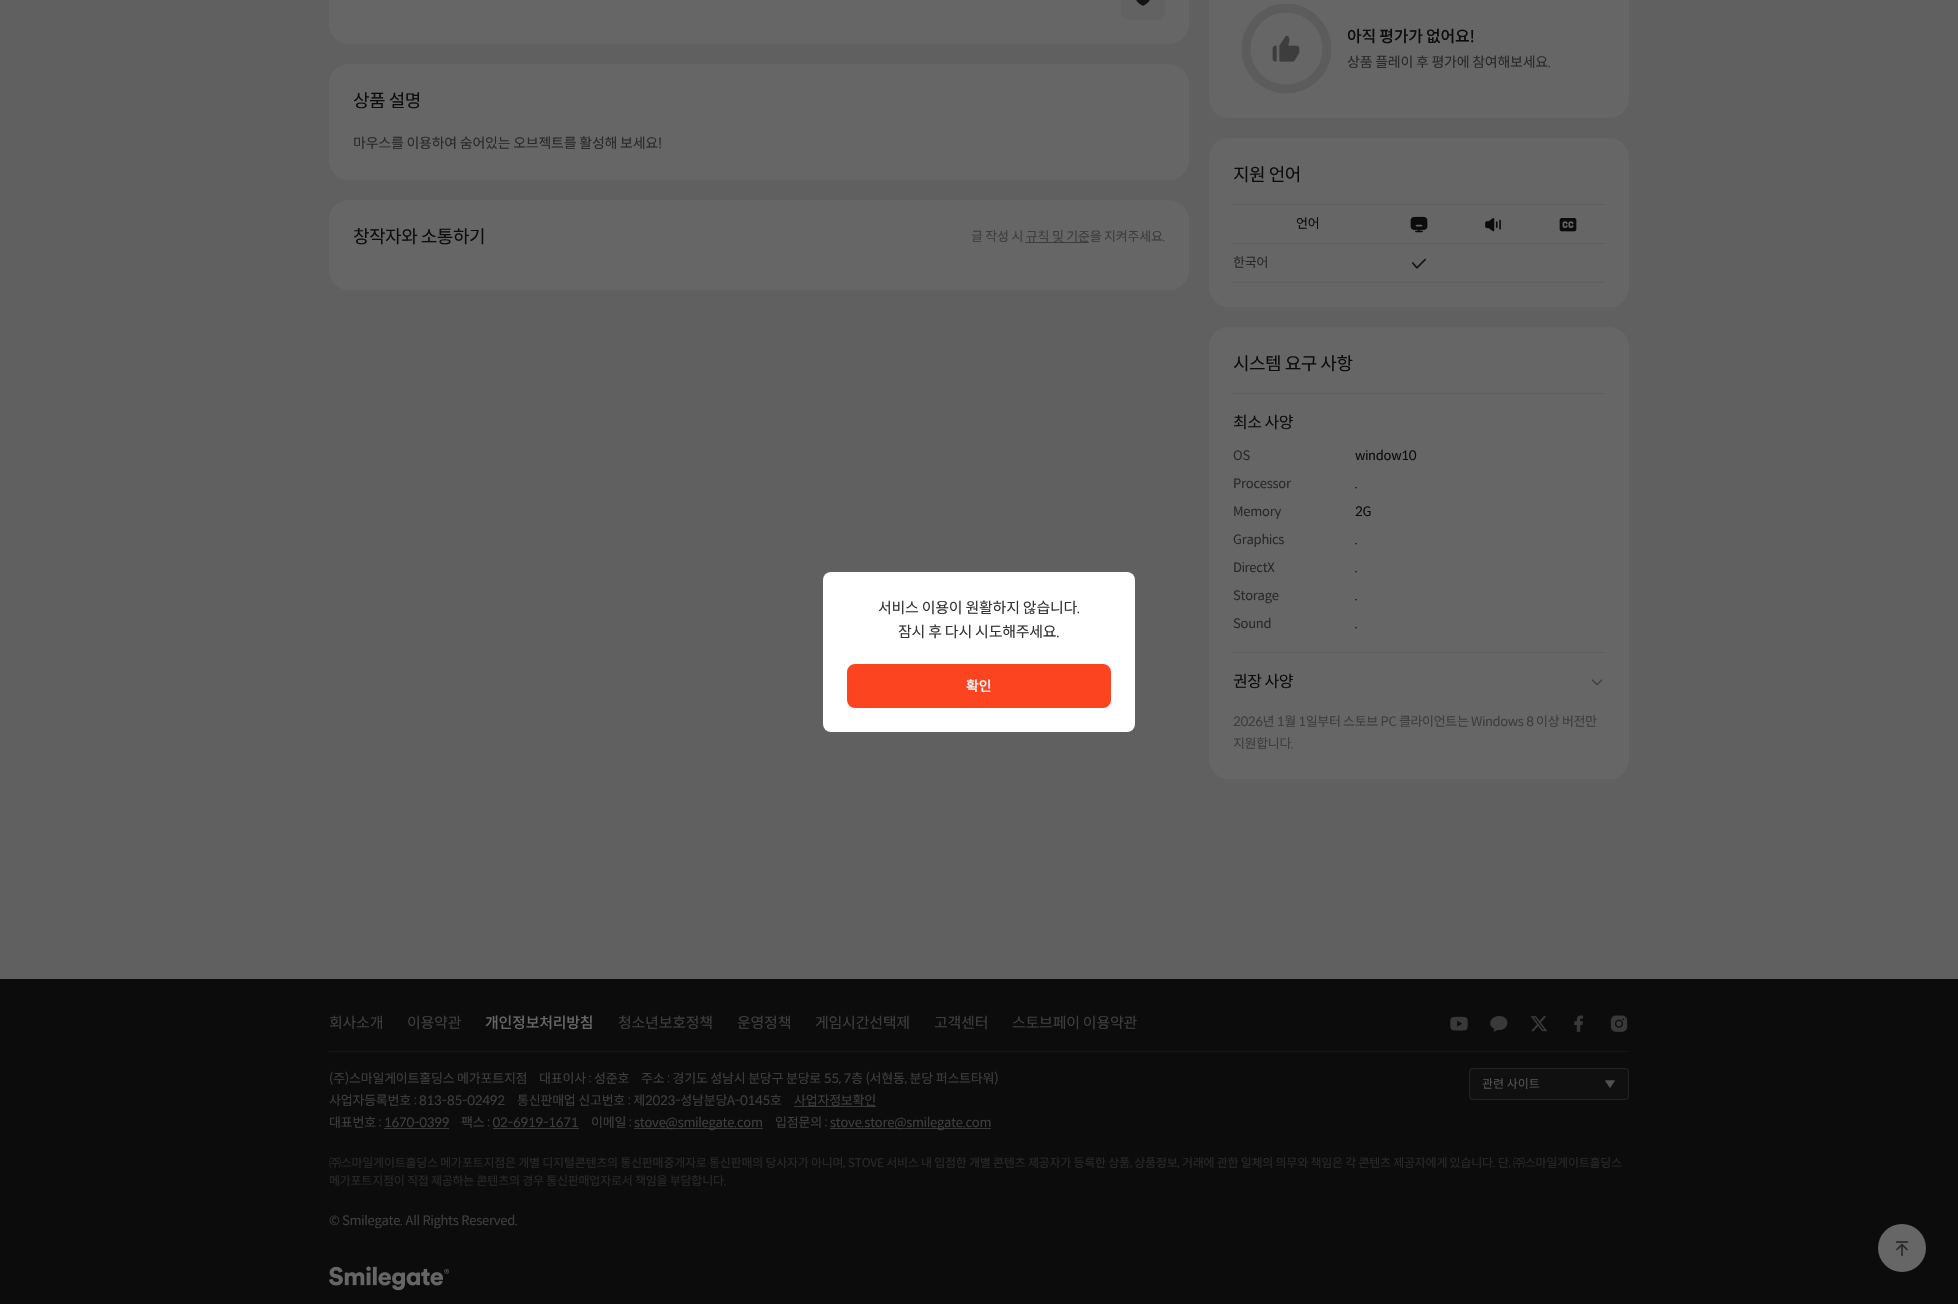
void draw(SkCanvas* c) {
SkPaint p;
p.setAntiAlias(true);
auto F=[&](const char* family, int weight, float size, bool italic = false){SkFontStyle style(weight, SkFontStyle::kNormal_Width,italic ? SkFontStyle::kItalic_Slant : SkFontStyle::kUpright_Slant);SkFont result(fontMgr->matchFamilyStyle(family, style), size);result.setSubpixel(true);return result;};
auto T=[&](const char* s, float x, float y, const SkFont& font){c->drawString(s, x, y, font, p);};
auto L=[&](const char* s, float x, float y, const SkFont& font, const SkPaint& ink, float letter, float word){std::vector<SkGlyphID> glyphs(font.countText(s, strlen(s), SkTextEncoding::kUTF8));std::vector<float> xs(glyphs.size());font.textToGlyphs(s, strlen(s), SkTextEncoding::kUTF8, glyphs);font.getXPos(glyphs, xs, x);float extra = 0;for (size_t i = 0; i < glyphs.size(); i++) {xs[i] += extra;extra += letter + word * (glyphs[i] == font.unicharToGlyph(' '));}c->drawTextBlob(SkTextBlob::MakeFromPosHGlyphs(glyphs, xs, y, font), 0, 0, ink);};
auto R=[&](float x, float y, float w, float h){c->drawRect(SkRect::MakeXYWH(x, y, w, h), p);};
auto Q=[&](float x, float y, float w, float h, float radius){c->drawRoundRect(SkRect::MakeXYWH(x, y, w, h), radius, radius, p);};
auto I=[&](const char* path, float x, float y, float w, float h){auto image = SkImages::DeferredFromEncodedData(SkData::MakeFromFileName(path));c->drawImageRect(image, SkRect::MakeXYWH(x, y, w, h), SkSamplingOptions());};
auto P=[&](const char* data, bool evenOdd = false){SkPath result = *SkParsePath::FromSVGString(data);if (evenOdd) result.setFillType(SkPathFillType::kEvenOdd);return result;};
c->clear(0xff606060);
p.setColor(0xff666666);
c->drawPath(P("M329-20h860v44c0 11-9 20-20 20h-820c-11 0-20-9-20-20z"),p);
p.setColor(0xff626262);
Q(1121,-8,44,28,8);
I("1.png",1136,0,14,6);
p.setColor(0xff666666);
Q(329,64,860,116,20);
auto f1 = F("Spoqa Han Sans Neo",400,18);
p.setColor(0xff0c0c0c);
L("상품 설명",353,107,f1,p,-.5,0);
auto f2 = F("Spoqa Han Sans Neo",400,14);
p.setColor(0xff292929);
L("마우스를 이용하여 숨어있는 오브젝트를 활성해 보세요!",353,148,f2,p,-.25,0);
p.setColor(0xff666666);
Q(329,200,860,90,20);
p.setColor(0xff0c0c0c);
L("창작자와 소통하기",353,243,f1,p,-.5,0);
auto f3 = F("Spoqa Han Sans Neo",400,13);
p.setColor(0xff3d3d3d);
L("글 작성 시 규칙 및 기준을 지켜주세요.",971,241,f3,p,-.25,0);
R(1025,242,64,1);
p.setColor(0xff666666);
Q(1209,-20,420,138,20);
c->save();
c->clipPath(P("M1241 94v-90h90v90z"),true);
p.setStroke(true);
p.setStrokeWidth(9);
p.setColor(0xff5c5c5c);
c->drawPath(P("M1246 49c0-22.5 18-41 40-41c22.5 0 41 18.5 41 41c0 22-18.5 40-41 40c-22 0-40-18-40-40z"),p);
c->restore();
I("2.png",1272,35,28,27);
auto f4 = F("Spoqa Han Sans Neo",500,16);
p.setStroke(false);
p.setColor(0xff0c0c0c);
L("아직 평가가 없어요!",1347,42,f4,p,-.25,0);
p.setColor(0xff292929);
L("상품 플레이 후 평가에 참여해보세요.",1347,67,f2,p,-.25,0);
p.setColor(0xff666666);
Q(1209,138,420,169,20);
p.setColor(0xff5e5e5e);
R(1233,204,372,1);
p.setColor(0xff0c0c0c);
L("지원 언어",1233,181,f1,p,-.5,0);
p.setColor(0xff5e5e5e);
R(1233,243,372,1);
p.setColor(0xff0c0c0c);
L("언어",1296,228,f3,p,-.25,0);
I("3.png",1410,216,18,17);
I("4.png",1485,218,16,14);
I("5.png",1559,218,18,14);
p.setColor(0xff5e5e5e);
R(1233,282,372,1);
p.setColor(0xff292929);
L("한국어",1233,267,f3,p,-.25,0);
I("6.png",1412,258,14,11);
p.setColor(0xff666666);
Q(1209,327,420,452,20);
p.setColor(0xff5e5e5e);
R(1233,393,372,1);
p.setColor(0xff0c0c0c);
L("시스템 요구 사항",1233,370,f1,p,-.5,0);
auto f5 = F("Spoqa Han Sans Neo",400,16);
L("최소 사양",1233,428,f5,p,-.5,0);
p.setColor(0xff292929);
L("OS",1233,460,f3,p,-.25,0);
p.setColor(0xff0c0c0c);
L("window10",1355,460,f3,p,-.25,0);
p.setColor(0xff292929);
L("Processor",1233,488,f3,p,-.25,0);
p.setColor(0xff0c0c0c);
L(".",1355,488,f3,p,-.25,0);
p.setColor(0xff292929);
L("Memory",1233,516,f3,p,-.25,0);
p.setColor(0xff0c0c0c);
L("2G",1355,516,f3,p,-.25,0);
p.setColor(0xff292929);
L("Graphics",1233,544,f3,p,-.25,0);
p.setColor(0xff0c0c0c);
L(".",1355,544,f3,p,-.25,0);
p.setColor(0xff292929);
L("DirectX",1233,572,f3,p,-.25,0);
p.setColor(0xff0c0c0c);
L(".",1355,572,f3,p,-.25,0);
p.setColor(0xff292929);
L("Storage",1233,600,f3,p,-.25,0);
p.setColor(0xff0c0c0c);
L(".",1355,600,f3,p,-.25,0);
p.setColor(0xff292929);
L("Sound",1233,628,f3,p,-.25,0);
p.setColor(0xff0c0c0c);
L(".",1355,628,f3,p,-.25,0);
p.setColor(0xff5e5e5e);
R(1233,652,372,1);
p.setColor(0xff0c0c0c);
L("권장 사양",1233,687,f5,p,-.5,0);
I("7.png",1591,679,12,7);
p.setColor(0xff3d3d3d);
L("2026년 1월 1일부터 스토브 PC 클라이언트는 Windows 8 이상 버전만",1233,726,f3,p,-.35,0);
L("지원합니다.",1233,748,f3,p,-.35,0);
p.setColor(0xffffffff);
Q(823,572,312,160,8);
auto f6 = F("Spoqa Han Sans Neo",400,15);
p.setColor(0xff333333);
L("서비스 이용이 원활하지 않습니다.",878,613,f6,p,-.25,0);
L("잠시 후 다시 시도해주세요.",898,637,f6,p,-.25,0);
p.setColor(0xfffc4420);
c->drawRoundRect(SkRect::MakeXYWH(848,665,262,42),7,7,p);
p.setStroke(true);
p.setStrokeWidth(2);
c->drawRoundRect(SkRect::MakeXYWH(848,665,262,42),7,7,p);
auto f7 = F("Spoqa Han Sans Neo",500,14);
p.setStroke(false);
p.setColor(0xffffffff);
L("확인",966,691,f7,p,-.25,0);
p.setColor(0xff0c0c0c);
R(0,979,1958,325);
p.setColor(0xff151515);
R(329,1051,1300,1);
p.setColor(0xff3d3d3d);
L("회사소개",329,1028,f6,p,-.25,0);
L("이용약관",407,1028,f6,p,-.25,0);
auto f8 = F("Spoqa Han Sans Neo",500,15);
p.setColor(0xff666666);
L("개인정보처리방침",485,1028,f8,p,-.25,0);
p.setColor(0xff3d3d3d);
L("청소년보호정책",618,1028,f6,p,-.25,0);
L("운영정책",737,1028,f6,p,-.25,0);
L("게임시간선택제",815,1028,f6,p,-.25,0);
L("고객센터",934,1028,f6,p,-.25,0);
L("스토브페이 이용약관",1012,1028,f6,p,-.25,0);
I("8.png",1450,1016,18,15);
p.setColor(0xff393939);
c->drawPath(P("M1499 1016c-8 0-12.5 9-4.5 13l-1 3l4-2c12 1.5 14-14 1.5-14z"),p);
I("9.png",1530,1016,17,16);
I("10.png",1574,1015,10,17);
I("11.png",1610,1015,18,17);
p.setColor(0xff3d3d3d);
L("(주)스마일게이트홀딩스 메가포트지점",329,1083,f3,p,-.25,0);
L("대표이사 : 성준호",539,1083,f3,p,-.25,0);
L("주소 : 경기도 성남시 분당구 분당로 55, 7층 (서현동, 분당 퍼스트타워)",641,1083,f3,p,-.25,0);
L("사업자등록번호 : 813-85-02492",329,1105,f3,p,-.25,0);
L("통신판매업 신고번호 : 제2023-성남분당A-0145호",517,1105,f3,p,-.25,0);
L("사업자정보확인",794,1105,f3,p,-.25,0);
p.setColor(0xff393939);
R(794,1106,82,1);
p.setColor(0xff3d3d3d);
L("대표번호 : 1670-0399",329,1127,f3,p,-.25,0);
p.setColor(0xff393939);
R(384,1128,65,1);
p.setColor(0xff3d3d3d);
L("팩스 : 02-6919-1671",461,1127,f3,p,-.25,0);
p.setColor(0xff393939);
R(493,1128,86,1);
p.setColor(0xff3d3d3d);
L("이메일 :",591,1127,f3,p,-.25,0);
p.setColor(0xff393939);
R(634,1128,129,1);
p.setColor(0xff3d3d3d);
L("stove@smilegate.com",634,1127,f3,p,-.25,0);
L("입점문의 :",775,1127,f3,p,-.25,0);
p.setColor(0xff393939);
R(830,1128,161,1);
p.setColor(0xff3d3d3d);
L("stove.store@smilegate.com",830,1127,f3,p,-.25,0);
p.setColor(0xff101010);
c->drawRoundRect(SkRect::MakeXYWH(1469.5,1068.5,159,31),3.5,3.5,p);
p.setStroke(true);
p.setStrokeWidth(1);
p.setColor(0xff242424);
c->drawRoundRect(SkRect::MakeXYWH(1469.5,1068.5,159,31),3.5,3.5,p);
auto f9 = F("Spoqa Han Sans Neo",400,12);
p.setStroke(false);
p.setColor(0xff525252);
T("관련 사이트",1482,1088,f9);
I("12.png",1605,1080,10,8);
p.setColor(0xff292929);
L("㈜스마일게이트홀딩스 메가포트지점은 개별 디지털콘텐츠의 통신판매중개자로 통신판매의 당사자가 아니며, STOVE 서비스 내 입점한 개별 콘텐츠 제공자가 등록한 상품, 상품정보, 거래에 관한 일체의 의무와 책임은 각 콘텐츠 제공자에게 있습니다. 단, ㈜스마일게이트홀딩스",329,1167,f9,p,-.25,0);
L("메가포트지점이 직접 제공하는 콘텐츠의 경우 통신판매업자로서 책임을 부담합니다.",329,1185,f9,p,-.25,0);
auto f10 = F("Noto Sans",400,13);
p.setColor(0xff3d3d3d);
L("©",329,1225,f10,p,-.25,0);
L("Smilegate. All Rights Reserved.",342,1225,f3,p,-.25,0);
I("13.png",329,1266,120,25);
p.setColor(0xff666666);
c->drawCircle(1902,1248,24,p);
I("14.png",1895,1241,14,16);
}
